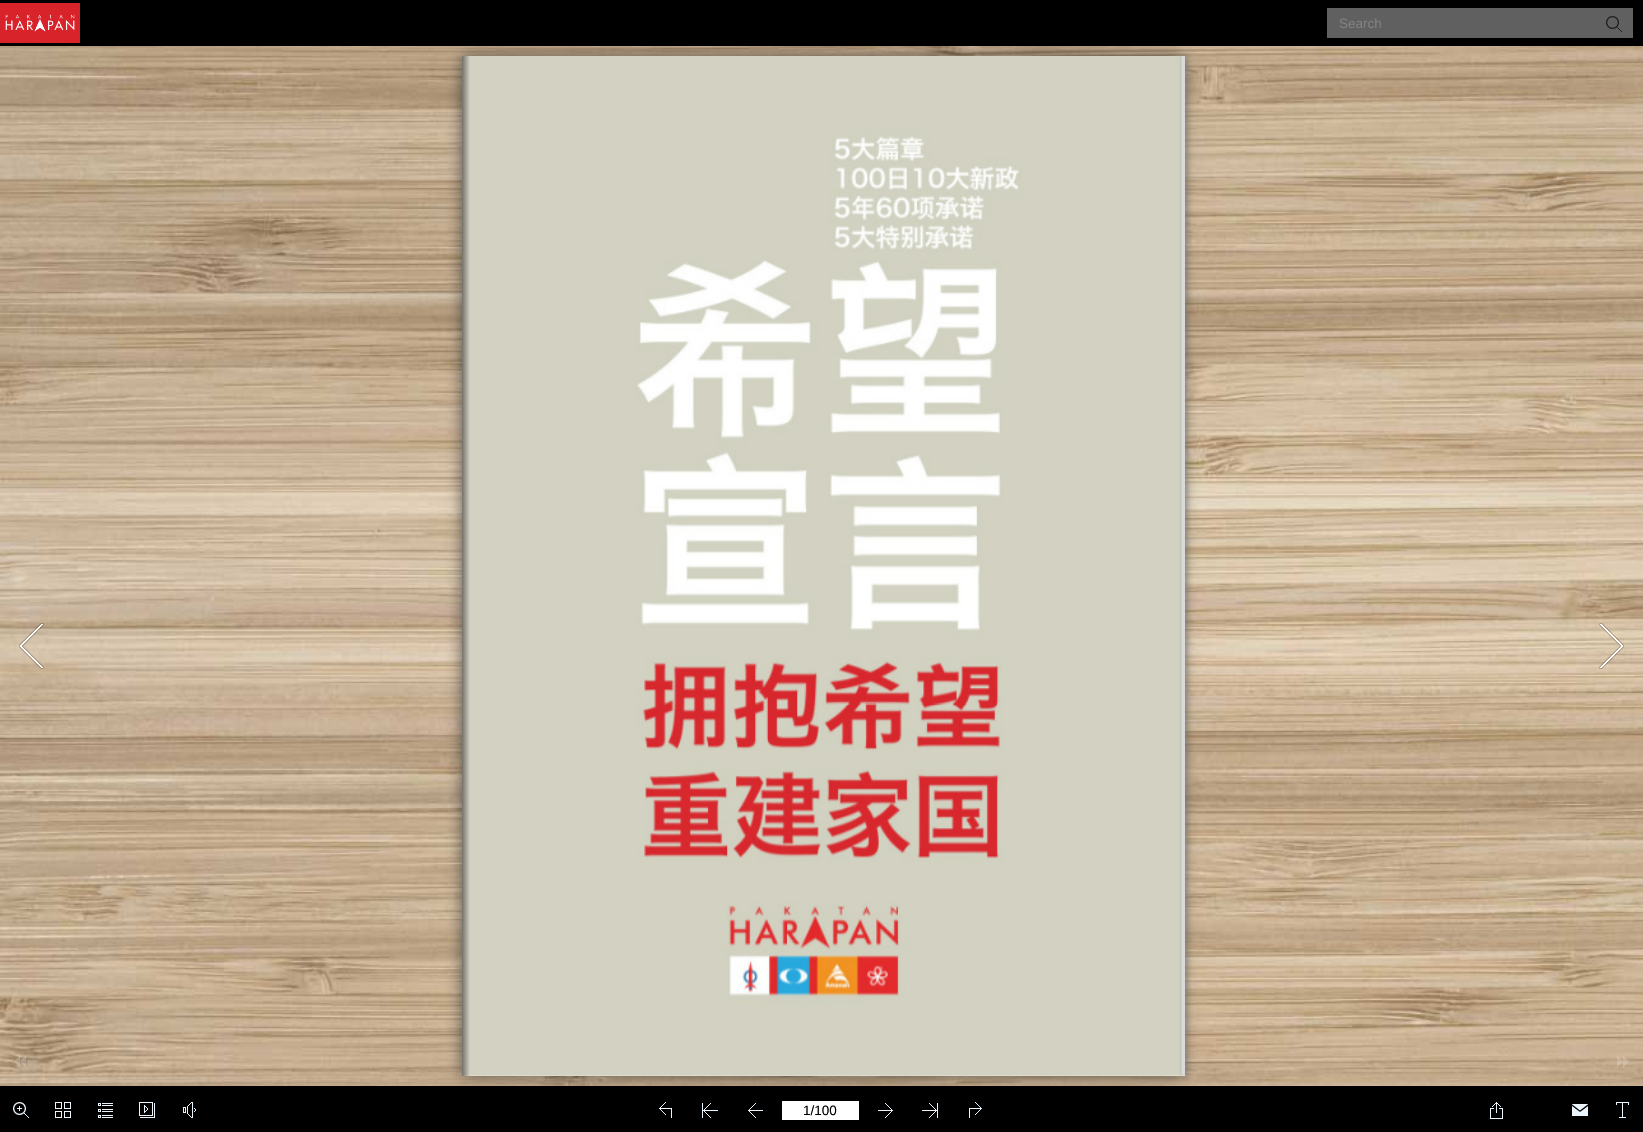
void draw(SkCanvas* c) {
SkPaint p;
p.setAntiAlias(true);
auto F=[&](const char* family, int weight, float size, bool italic = false){SkFontStyle style(weight, SkFontStyle::kNormal_Width,italic ? SkFontStyle::kItalic_Slant : SkFontStyle::kUpright_Slant);SkFont result(fontMgr->matchFamilyStyle(family, style), size);result.setSubpixel(true);return result;};
auto T=[&](const char* s, float x, float y, const SkFont& font){c->drawString(s, x, y, font, p);};
auto R=[&](float x, float y, float w, float h){c->drawRect(SkRect::MakeXYWH(x, y, w, h), p);};
auto I=[&](const char* path, float x, float y, float w, float h){auto image = SkImages::DeferredFromEncodedData(SkData::MakeFromFileName(path));c->drawImageRect(image, SkRect::MakeXYWH(x, y, w, h), SkSamplingOptions());};
c->clear(0xffffffff);
I("5.png",0,46,1643,1040);
p.setColor(0xb3282828);
p.setMaskFilter(SkMaskFilter::MakeBlur(kNormal_SkBlurStyle, 7.5));
c->drawRect(SkRect::MakeXYWH(462,56,720,1020),p);
p.setMaskFilter(nullptr);
p.setColor(0xff000000);
R(0,0,1643,46);
I("1.png",0,3,80,40);
p.setColor(0xff606060);
R(1327,8,306,30);
auto f1 = F("Liberation Sans",400,13.5);
p.setColor(0xff808080);
T("Search",1339,28,f1);
I("2.png",1606,16,16,16);
I("4.png",462,1075,719,1);
I("4.png",462,1075,719,1);
I("3.png",462,56,719,1020);
{
const SkColor colors[] = {0x80141414,0x00141414};
const float stops[] = {0,1};
const SkPoint ends[] = {{462,566}, {470,566}};
p.setShader(SkGradientShader::MakeLinear(ends, colors, stops, 2, SkTileMode::kClamp));
p.setAlpha(255);
}
R(462,56,8,1020);
p.setShader(nullptr);
p.setColor(0xb37d7d7d);
p.setMaskFilter(SkMaskFilter::MakeBlur(kNormal_SkBlurStyle, 2.5));
c->drawRect(SkRect::MakeXYWH(1183,56,4,1020),p);
p.setMaskFilter(nullptr);
p.setColor(0xffcccccc);
R(1181,56,1,1020);
p.setColor(0xffd9d9d9);
R(1182,56,3,1020);
I("6.png",19,623,25,46);
I("7.png",1599,623,25,46);
I("8.png",14,1056,12,11);
I("9.png",1617,1056,12,11);
p.setColor(0xff000000);
R(0,1086,1643,46);
I("10.png",13,1102,16,16);
I("11.png",55,1102,16,16);
I("12.png",98,1103,15,15);
I("13.png",139,1102,16,16);
I("14.png",183,1102,13,16);
I("15.png",659,1102,13,16);
I("16.png",702,1103,16,15);
I("17.png",748,1103,15,15);
p.setColor(0xffffffff);
R(782,1101,77,19);
p.setColor(0xff000000);
T("1/100",803,1115,f1);
I("18.png",878,1103,15,15);
I("19.png",922,1103,16,15);
I("20.png",969,1102,13,16);
I("21.png",1490,1102,13,17);
I("22.png",1572,1104,16,12);
I("23.png",1616,1102,13,16);
}
